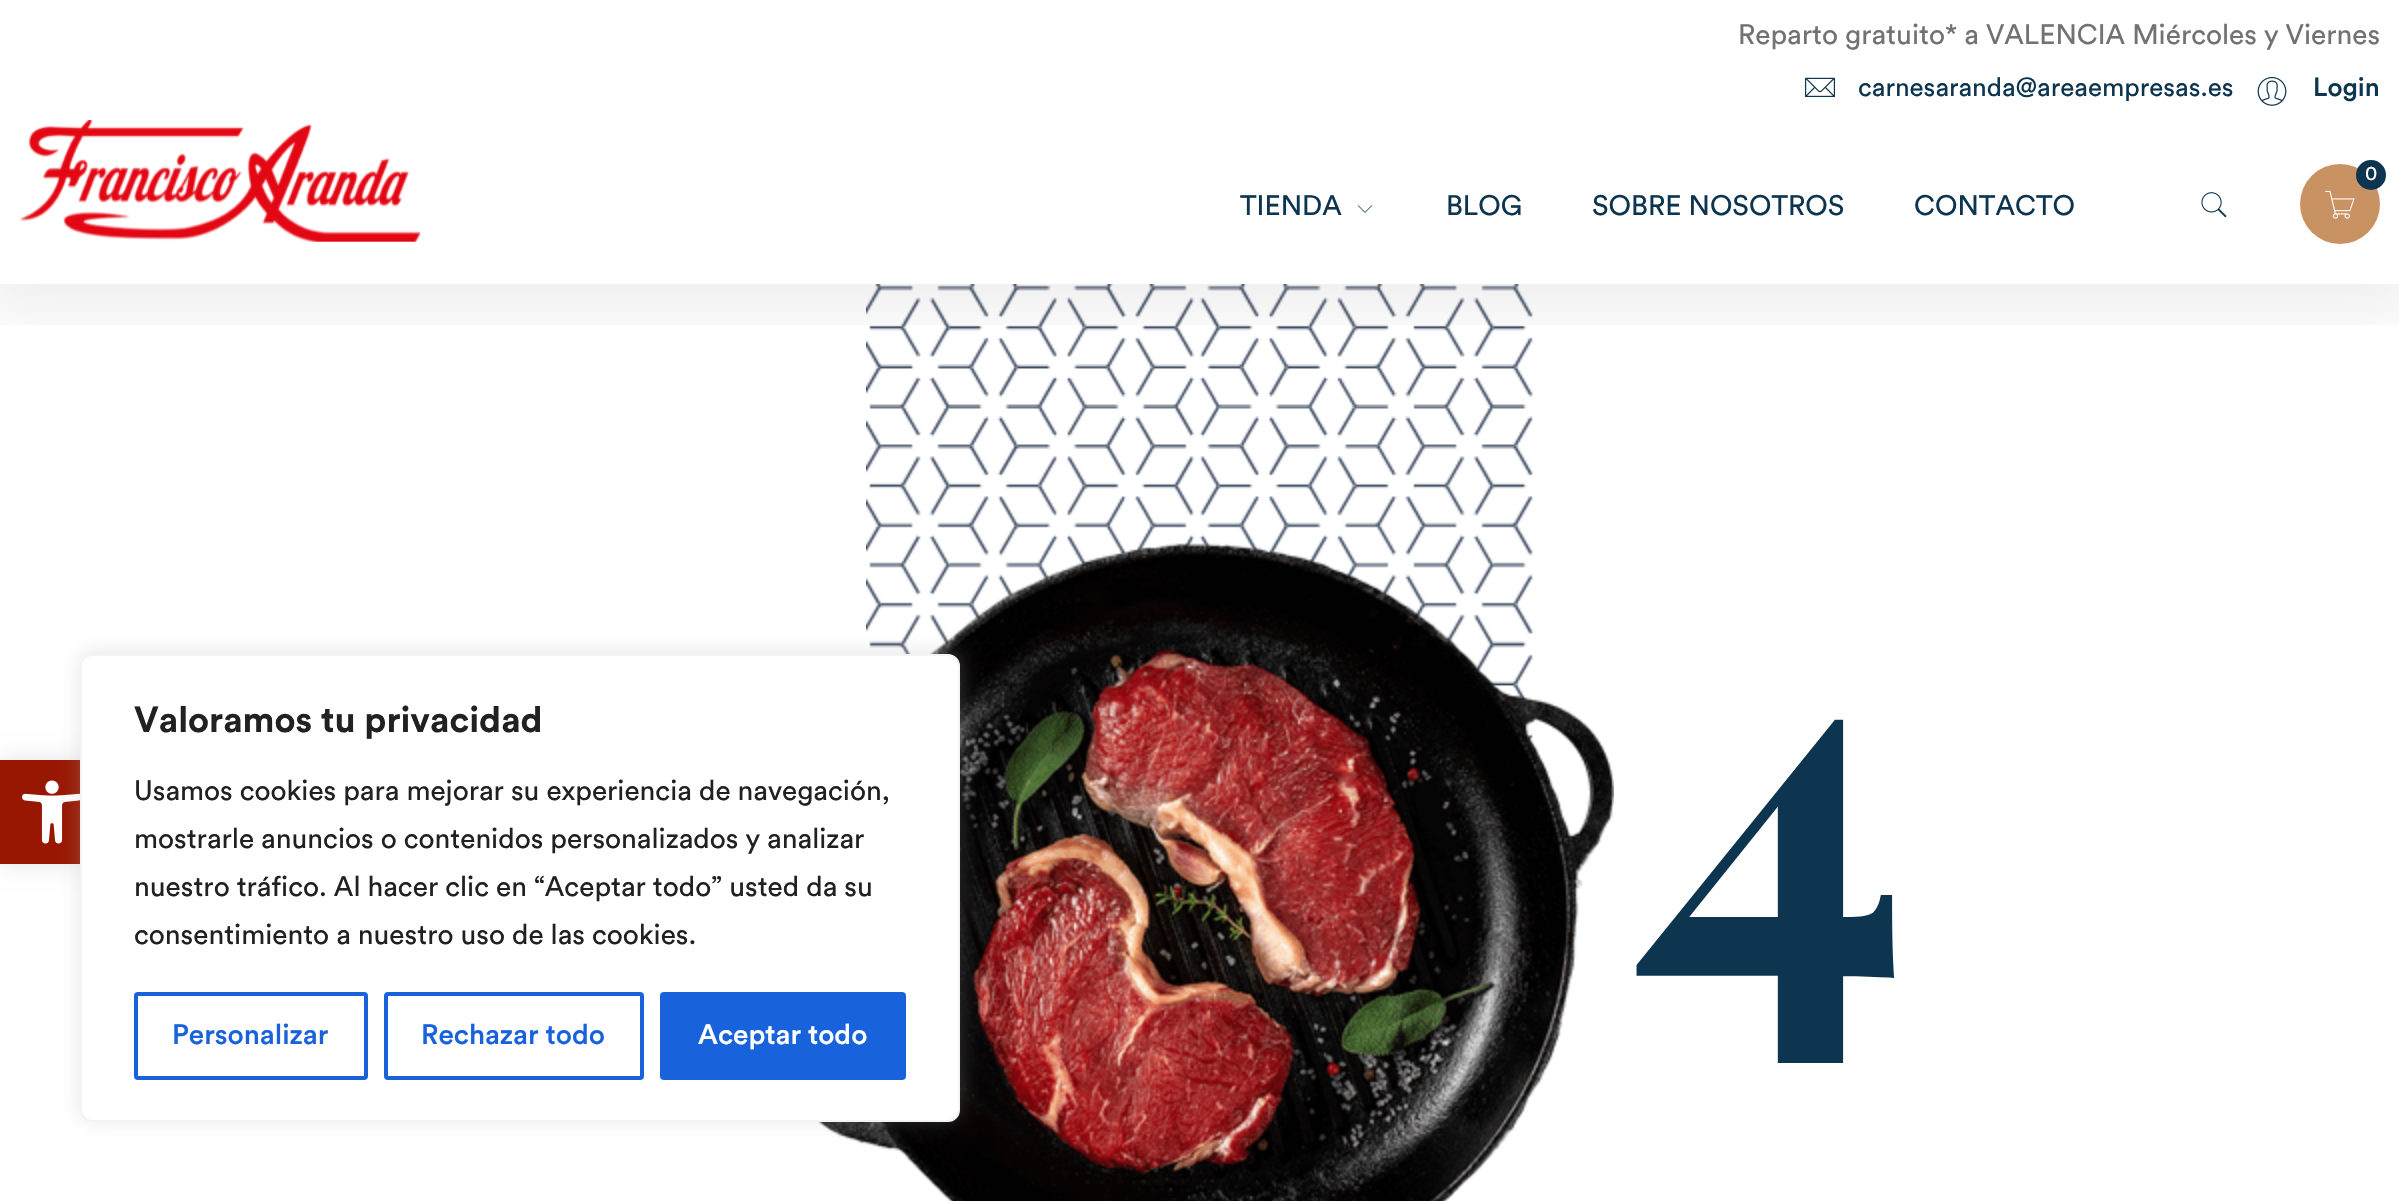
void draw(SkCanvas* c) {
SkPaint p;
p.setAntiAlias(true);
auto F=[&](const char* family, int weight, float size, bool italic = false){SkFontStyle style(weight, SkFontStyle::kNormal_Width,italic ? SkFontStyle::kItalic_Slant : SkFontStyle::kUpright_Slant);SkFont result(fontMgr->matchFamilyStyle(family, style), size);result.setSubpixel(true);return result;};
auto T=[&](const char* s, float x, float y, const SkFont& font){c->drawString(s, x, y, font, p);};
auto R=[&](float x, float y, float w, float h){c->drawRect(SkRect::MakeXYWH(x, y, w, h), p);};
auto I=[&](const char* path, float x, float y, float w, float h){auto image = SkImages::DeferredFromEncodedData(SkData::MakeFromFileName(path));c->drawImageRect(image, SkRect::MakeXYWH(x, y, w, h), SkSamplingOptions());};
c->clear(0xffffffff);
p.setColor(0x1a000000);
p.setMaskFilter(SkMaskFilter::MakeBlur(kNormal_SkBlurStyle, 10));
c->drawRect(SkRect::MakeXYWH(0,760,104,104),p);
p.setMaskFilter(nullptr);
p.setColor(0xff971703);
R(0,760,80,104);
I("1.png",22,780,58,64);
I("8.png",866,284,667,460);
I("9.png",817,543,797,658);
p.setColor(0x4dacabab);
p.setMaskFilter(SkMaskFilter::MakeBlur(kNormal_SkBlurStyle, 10));
c->drawRoundRect(SkRect::MakeXYWH(80,652,880,468),12,12,p);
p.setMaskFilter(nullptr);
p.setColor(0xffffffff);
c->drawRoundRect(SkRect::MakeXYWH(81,655,878,466),11,11,p);
p.setStroke(true);
p.setStrokeWidth(2);
p.setColor(0xfff4f4f4);
c->drawRoundRect(SkRect::MakeXYWH(81,655,878,466),11,11,p);
auto f1 = F("Circular",700,36);
p.setStroke(false);
p.setColor(0xff212121);
T("Valoramos tu privacidad",134,732,f1);
auto f2 = F("Circular",400,28);
T("Usamos cookies para mejorar su experiencia de navegación,",134,800,f2);
T("mostrarle anuncios o contenidos personalizados y analizar",134,848,f2);
T("nuestro tráfico. Al hacer clic en “Aceptar todo” usted da su",134,896,f2);
T("consentimiento a nuestro uso de las cookies.",134,944,f2);
p.setStroke(true);
p.setStrokeWidth(4);
p.setColor(0xff1863dc);
c->drawRoundRect(SkRect::MakeXYWH(136,994,230,84),2,2,p);
auto f3 = F("Circular",500,28);
p.setStroke(false);
T("Personalizar",172,1044,f3);
p.setStroke(true);
c->drawRoundRect(SkRect::MakeXYWH(386,994,256,84),2,2,p);
p.setStroke(false);
T("Rechazar todo",421,1044,f3);
c->drawRoundRect(SkRect::MakeXYWH(662,994,242,84),2,2,p);
p.setStroke(true);
c->drawRoundRect(SkRect::MakeXYWH(662,994,242,84),2,2,p);
p.setStroke(false);
p.setColor(0xffffffff);
T("Aceptar todo",698,1044,f3);
c->save();
c->clipRect(SkRect::MakeXYWH(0,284,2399,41));
p.setColor(0x12000000);
p.setMaskFilter(SkMaskFilter::MakeBlur(kNormal_SkBlurStyle, 30.5));
c->drawRect(SkRect::MakeXYWH(-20,-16,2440,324),p);
p.setMaskFilter(nullptr);
c->restore();
I("2.png",20,120,400,122);
p.setColor(0xff727272);
T("Reparto gratuito* a VALENCIA Miércoles y Viernes",1738,44,f2);
I("3.png",1805,77,30,20);
auto f4 = F("Circular",400,26);
p.setColor(0xff0d354f);
T("carnesaranda@areaempresas.es",1858,96,f4);
I("4.png",2257,77,30,29);
auto f5 = F("Circular",500,26);
T("Login",2313,96,f5);
p.setColor(0xffc89263);
c->drawCircle(2340,204,40,p);
p.setColor(0xff0d354f);
c->drawCircle(2371,175,15,p);
auto f6 = F("Circular",400,20);
p.setColor(0xffffffff);
T("0",2365,180,f6);
I("5.png",2325,190,30,29);
p.setColor(0xff0d354f);
T("TIENDA",1240,215,f2);
I("6.png",1357,205,16,8);
T("BLOG",1446,215,f2);
T("SOBRE NOSOTROS",1592,215,f2);
T("CONTACTO",1914,215,f2);
I("7.png",2201,192,26,26);
auto f7 = F("Playfair Display",800,510);
T("4",1634,991,f7);
}
